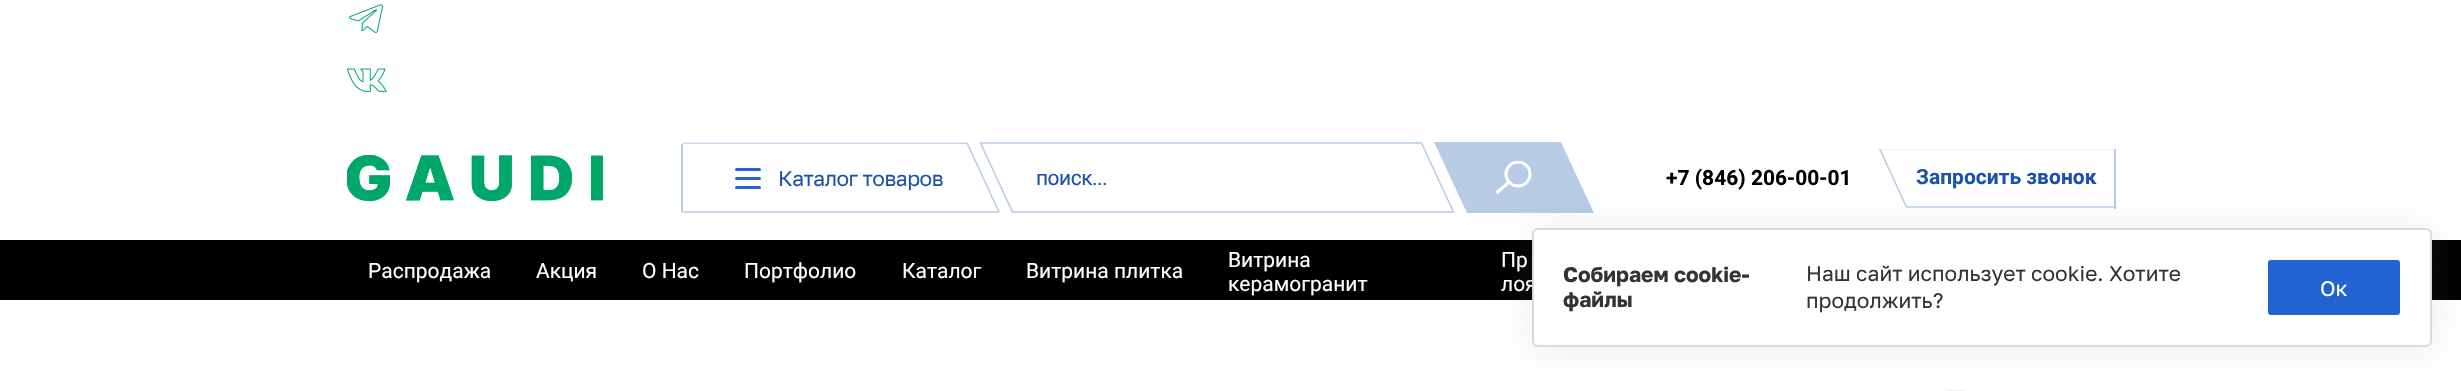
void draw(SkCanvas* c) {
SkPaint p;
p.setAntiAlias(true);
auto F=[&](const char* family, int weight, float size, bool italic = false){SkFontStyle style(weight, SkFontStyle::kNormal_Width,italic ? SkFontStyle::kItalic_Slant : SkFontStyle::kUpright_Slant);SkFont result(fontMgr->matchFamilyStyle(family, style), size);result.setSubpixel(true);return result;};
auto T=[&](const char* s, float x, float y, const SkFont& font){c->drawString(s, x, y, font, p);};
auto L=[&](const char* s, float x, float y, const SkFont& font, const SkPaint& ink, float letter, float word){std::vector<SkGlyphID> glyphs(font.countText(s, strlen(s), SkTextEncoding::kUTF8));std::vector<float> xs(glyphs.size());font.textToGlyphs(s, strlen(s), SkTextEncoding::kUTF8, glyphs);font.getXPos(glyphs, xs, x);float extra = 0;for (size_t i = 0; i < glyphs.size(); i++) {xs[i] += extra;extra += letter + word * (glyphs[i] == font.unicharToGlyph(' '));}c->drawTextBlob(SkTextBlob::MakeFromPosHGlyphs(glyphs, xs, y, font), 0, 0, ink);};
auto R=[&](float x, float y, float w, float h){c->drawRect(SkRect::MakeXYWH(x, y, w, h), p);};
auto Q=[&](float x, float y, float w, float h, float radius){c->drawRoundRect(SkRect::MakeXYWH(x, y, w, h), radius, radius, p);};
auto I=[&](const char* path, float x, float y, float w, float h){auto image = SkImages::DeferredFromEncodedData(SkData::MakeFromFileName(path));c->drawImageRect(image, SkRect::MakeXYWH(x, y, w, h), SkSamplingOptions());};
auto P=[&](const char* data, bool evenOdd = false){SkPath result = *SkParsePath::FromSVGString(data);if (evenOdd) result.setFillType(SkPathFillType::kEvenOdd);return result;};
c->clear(0xffffffff);
I("1.png",349,4,34,29);
I("2.png",347,68,40,24);
I("3.png",347,155,256,46);
p.setColor(0xffb7cbe5);
R(681,144,2,68);
auto f1 = F("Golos",400,21);
p.setColor(0xff1c52ac);
L("Каталог товаров",778,186,f1,p,-.5,0);
p.setStroke(true);
p.setStrokeWidth(1.5);
p.setColor(0xffb7cbe5);
c->drawPath(P("M980.5 143h441l32 69h-441z"),p);
c->save();
c->clipPath(P("M684 142.5h313.5c1.5 0 3 1.5 3 3v64.5c0 1.5-1.5 3-3 3h-313.5c-1 0-1.5-1.5-1.5-3v-64.5c0-1.5 .5-3 1.5-3z"),true);
c->drawPath(P("M650.5 143h316.5l32 69h-316.5z"),p);
c->restore();
p.setStroke(false);
p.setColor(0xff2363d1);
Q(735,177,26,3,1.5);
Q(735,168,26,3,1.5);
Q(735,186,26,3,1.5);
auto f2 = F("Roboto",400,21);
p.setColor(0xff1c52ac);
L("поиск...",1036,185,f2,p,-.5,0);
p.setColor(0xffb7cbe5);
c->drawPath(P("M1434 142h127l33 71h-127z"),p);
c->save();
c->clipRect(SkRect::MakeXYWH(1496,161,36,34));
p.setStroke(true);
p.setStrokeWidth(3);
p.setColor(0xffffffff);
c->drawCircle(1518,174,12,p);
c->restore();
c->drawPath(P("M1508.5 182.5l-12 10.5"),p);
auto f3 = F("Roboto",700,21);
p.setStroke(false);
p.setColor(0xff000000);
T("+7 (846) 206-00-01",1666,185,f3);
p.setColor(0xffb7cbe5);
R(2114,149,2,60);
c->save();
c->clipRect(SkRect::MakeXYWH(1875,149,239,60));
p.setStroke(true);
p.setStrokeWidth(1.5);
c->drawPath(P("M1879.5 148.5h237l27 58.5h-237z"),p);
c->restore();
p.setStroke(false);
p.setColor(0xff1c52ac);
T("Запросить звонок",1916,184,f3);
p.setColor(0xff000000);
R(0,240,2461,60);
p.setColor(0xffffffff);
T("Распродажа",368,278,f2);
T("Акция",536,278,f2);
T("О Нас",642,278,f2);
T("Портфолио",744,278,f2);
T("Каталог",902,278,f2);
T("Витрина плитка",1026,278,f2);
T("Витрина",1228,267,f2);
T("керамогранит",1228,291,f2);
T("Пр",1501,267,f2);
T("лоя",1501,291,f2);
I("4.png",1945,390,22,1);
p.setColor(0x26767676);
p.setMaskFilter(SkMaskFilter::MakeBlur(kNormal_SkBlurStyle, 19));
c->drawRoundRect(SkRect::MakeXYWH(1532,231,900,119),6,6,p);
p.setMaskFilter(nullptr);
p.setColor(0xffffffff);
c->drawRoundRect(SkRect::MakeXYWH(1533,229,898,117),5,5,p);
p.setStroke(true);
p.setStrokeWidth(2);
p.setColor(0xffd9d9de);
c->drawRoundRect(SkRect::MakeXYWH(1533,229,898,117),5,5,p);
auto f4 = F("Golos Text",700,21);
p.setStroke(false);
p.setColor(0xff333333);
T("Собираем cookie-",1563,282,f4);
T("файлы",1563,307,f4);
T("Наш сайт использует cookie. Хотите",1806,281,f1);
T("продолжить?",1806,308,f1);
p.setColor(0xff2363d1);
Q(2268,260,132,55,3);
p.setColor(0xffffffff);
T("Ок",2320,296,f1);
}
